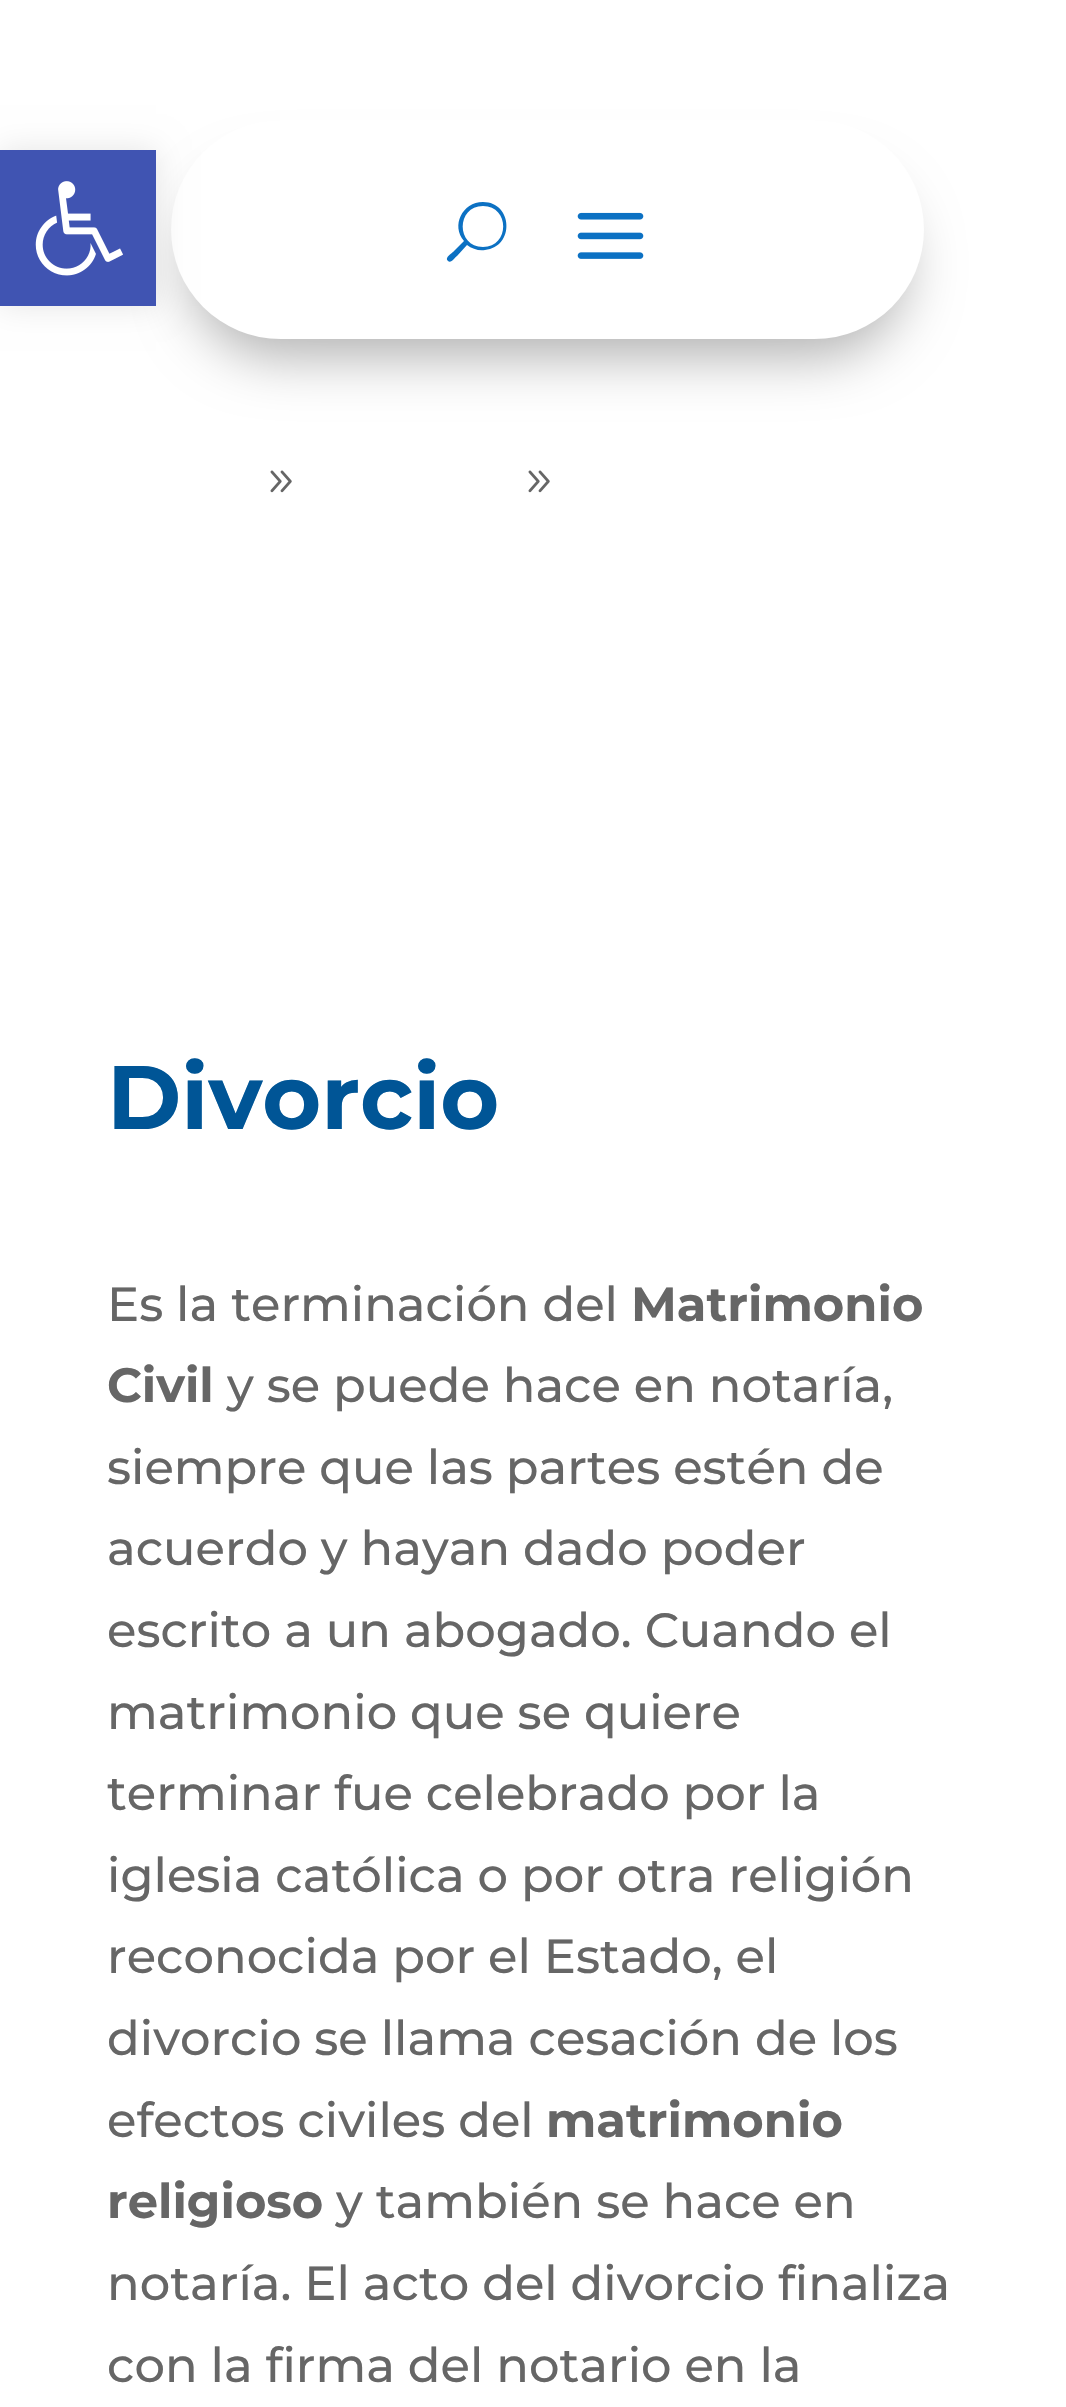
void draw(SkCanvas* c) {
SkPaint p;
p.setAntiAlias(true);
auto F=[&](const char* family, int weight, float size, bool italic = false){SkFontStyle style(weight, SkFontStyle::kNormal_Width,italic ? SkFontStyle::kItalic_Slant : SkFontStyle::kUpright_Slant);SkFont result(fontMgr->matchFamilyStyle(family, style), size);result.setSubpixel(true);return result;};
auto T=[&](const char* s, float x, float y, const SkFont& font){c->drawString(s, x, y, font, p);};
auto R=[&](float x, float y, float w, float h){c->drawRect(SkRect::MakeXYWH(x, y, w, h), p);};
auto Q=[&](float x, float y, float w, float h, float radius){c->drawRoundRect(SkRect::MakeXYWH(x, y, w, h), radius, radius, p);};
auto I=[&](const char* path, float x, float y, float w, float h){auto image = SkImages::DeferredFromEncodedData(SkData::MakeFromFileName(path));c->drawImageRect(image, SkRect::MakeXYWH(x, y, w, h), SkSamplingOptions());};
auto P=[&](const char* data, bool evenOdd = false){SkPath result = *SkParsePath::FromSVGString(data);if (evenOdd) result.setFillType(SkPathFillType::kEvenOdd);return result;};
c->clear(0xffffffff);
p.setColor(0x4d000000);
p.setMaskFilter(SkMaskFilter::MakeBlur(kNormal_SkBlurStyle, 27));
c->drawRoundRect(SkRect::MakeXYWH(189,174,717,183),91.5,91.5,p);
p.setMaskFilter(nullptr);
p.setColor(0xffffffff);
Q(171,120,753,219,109.5);
p.setColor(0x1a000000);
p.setMaskFilter(SkMaskFilter::MakeBlur(kNormal_SkBlurStyle, 15));
c->drawRect(SkRect::MakeXYWH(0,150,156,156),p);
p.setMaskFilter(nullptr);
p.setColor(0xff4054b2);
R(0,150,156,156);
I("1.png",35,181,88,95);
p.setColor(0xff0c71c3);
c->drawPath(P("M483 202c-21 0-32 24-19 39l-11 11c-1 1-9 6-5 9c3 3 7-4 9-5l10-11c5 4 12 6 18 5c30-3 28-48-2-48zm0 45c-27 0-27-41 0-41c27 0 27 41 0 41z"),p);
I("2.png",577,212,67,47);
I("3.png",270,470,22,23);
I("3.png",528,470,22,23);
auto f1 = F("Montserrat",100,90);
p.setColor(0xff005596);
T("Divorcio",107,1129,f1);
auto f2 = F("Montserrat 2",100,48);
p.setColor(0xff666666);
T("Es la terminación del",107,1321,f2);
auto f3 = F("Montserrat",100,48);
T("Matrimonio",631,1321,f3);
T("Civil",107,1402,f3);
T("y se puede hace en notaría,",227,1402,f2);
T("siempre que las partes estén de",107,1484,f2);
T("acuerdo y hayan dado poder",107,1565,f2);
T("escrito a un abogado. Cuando el",107,1647,f2);
T("matrimonio que se quiere",107,1729,f2);
T("terminar fue celebrado por la",107,1810,f2);
T("iglesia católica o por otra religión",107,1892,f2);
T("reconocida por el Estado, el",107,1973,f2);
T("divorcio se llama cesación de los",107,2055,f2);
T("efectos civiles del",107,2137,f2);
T("matrimonio",546,2137,f3);
T("religioso",107,2218,f3);
T("y también se hace en",336,2218,f2);
T("notaría. El acto del divorcio finaliza",107,2300,f2);
T("con la firma del notario en la",107,2382,f2);
}
